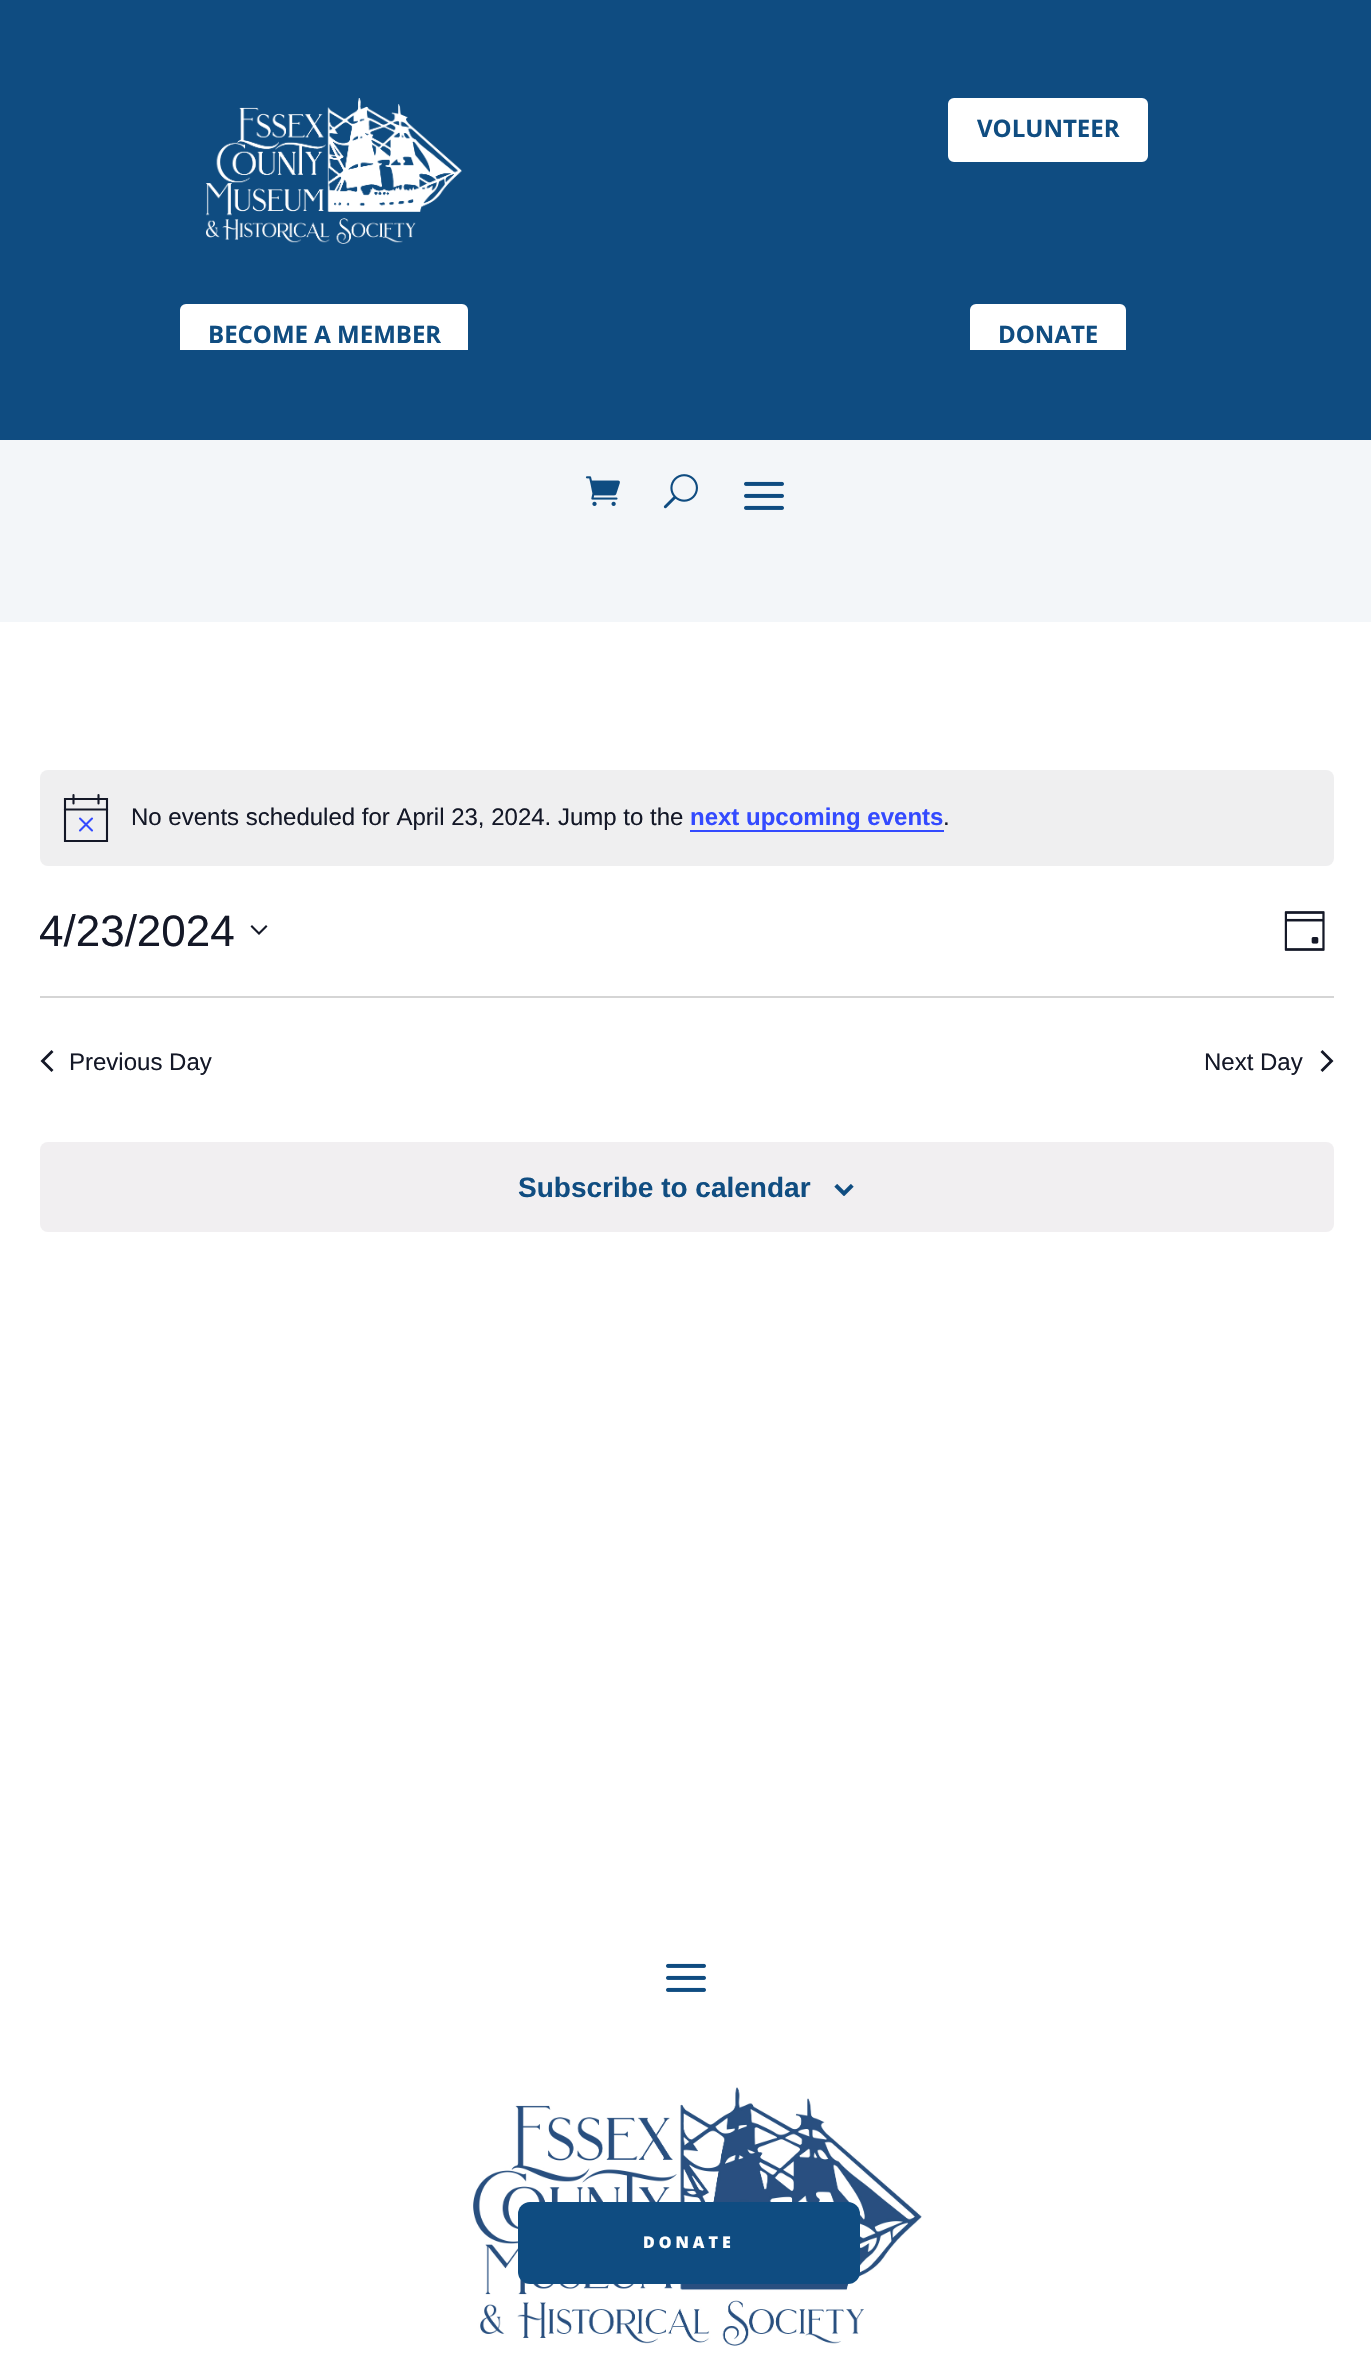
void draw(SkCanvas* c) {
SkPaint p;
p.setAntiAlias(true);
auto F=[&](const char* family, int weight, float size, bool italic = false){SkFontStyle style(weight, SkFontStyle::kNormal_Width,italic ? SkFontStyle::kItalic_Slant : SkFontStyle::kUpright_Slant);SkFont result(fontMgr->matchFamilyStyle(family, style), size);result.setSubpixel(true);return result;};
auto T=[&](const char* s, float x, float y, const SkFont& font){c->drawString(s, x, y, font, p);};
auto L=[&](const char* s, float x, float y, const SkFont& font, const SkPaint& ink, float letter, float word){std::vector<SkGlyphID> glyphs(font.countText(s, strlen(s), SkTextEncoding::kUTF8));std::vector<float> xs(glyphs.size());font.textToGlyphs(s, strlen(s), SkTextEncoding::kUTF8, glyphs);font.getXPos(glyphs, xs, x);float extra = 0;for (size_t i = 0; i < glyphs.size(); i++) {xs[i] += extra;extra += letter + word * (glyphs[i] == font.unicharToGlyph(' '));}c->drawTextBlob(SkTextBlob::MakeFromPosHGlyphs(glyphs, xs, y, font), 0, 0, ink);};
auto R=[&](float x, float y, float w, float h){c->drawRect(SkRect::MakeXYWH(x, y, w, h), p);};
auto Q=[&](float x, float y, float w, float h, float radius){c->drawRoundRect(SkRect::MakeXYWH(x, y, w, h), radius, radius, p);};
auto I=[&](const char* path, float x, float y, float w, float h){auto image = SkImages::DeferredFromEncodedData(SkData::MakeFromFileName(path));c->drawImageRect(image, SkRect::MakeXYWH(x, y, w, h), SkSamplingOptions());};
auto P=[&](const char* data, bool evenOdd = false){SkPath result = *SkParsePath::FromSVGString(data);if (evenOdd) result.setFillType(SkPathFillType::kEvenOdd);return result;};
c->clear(0xffffffff);
p.setColor(0xff0f4c81);
R(0,0,1371,350);
I("1.png",206,98,256,146);
p.setColor(0xffffffff);
c->drawRoundRect(SkRect::MakeXYWH(950,100,196,60),4,4,p);
p.setStroke(true);
p.setStrokeWidth(4);
c->drawRoundRect(SkRect::MakeXYWH(950,100,196,60),4,4,p);
auto f1 = F("Open Sans",700,24);
p.setStroke(false);
p.setColor(0xff104d81);
T("VOLUNTEER",977,137,f1);
p.setColor(0xffffffff);
c->drawRoundRect(SkRect::MakeXYWH(182,306,284,58),4,4,p);
p.setStroke(true);
c->drawRoundRect(SkRect::MakeXYWH(182,306,284,58),4,4,p);
p.setStroke(false);
p.setColor(0xff104d81);
T("BECOME A MEMBER",208,343,f1);
p.setColor(0xffffffff);
c->drawRoundRect(SkRect::MakeXYWH(972,306,152,58),4,4,p);
p.setStroke(true);
c->drawRoundRect(SkRect::MakeXYWH(972,306,152,58),4,4,p);
p.setStroke(false);
p.setColor(0xff104d81);
T("DONATE",998,343,f1);
p.setColor(0xff0f4c81);
R(0,350,1371,90);
p.setColor(0xfff3f6f9);
R(0,440,1371,182);
I("2.png",585,476,35,30);
I("3.png",663,474,35,35);
I("4.png",744,481,40,29);
p.setColor(0xffefeff0);
Q(40,770,1294,96,8);
p.setStroke(true);
p.setStrokeWidth(2.1);
p.setColor(0xff141827);
c->drawPath(P("M65 799h42v42h-42z"),p);
p.setStrokeCap(SkPaint::kRound_Cap);
p.setColor(0xff334aff);
c->drawPath(P("M80 818.5l12 12m0-12l-12 12"),p);
p.setColor(0xff141827);
c->drawPath(P("M73.5 795v8.5m25-8.5v8.5"),p);
p.setStrokeCap(SkPaint::kSquare_Cap);
c->drawPath(P("M65 809.5h42"),p);
auto f2 = F("Liberation Sans",400,24);
p.setStroke(false);
T("No events scheduled for April 23, 2024. Jump to the",131,825,f2);
p.setColor(0xff334aff);
R(690,830,254,2);
auto f3 = F("Liberation Sans",700,24);
T("next upcoming events",690,825,f3);
p.setColor(0xff141827);
T(".",943,825,f2);
auto f4 = F("Liberation Sans",400,44);
T("4/23/2024",39,946,f4);
c->drawPath(P("M252 925l7 7l7-7l1.5 1.5l-8.5 8.5l-8.5-8.5z",true),p);
I("5.png",1284,911,41,40);
p.setColor(0xffd5d5d5);
R(40,996,1294,2);
p.setColor(0xff141827);
c->drawPath(P("M53.5 1070l-2 2l-11-11l11-11l2 2l-9 9z"),p);
T("Previous Day",69,1070,f2);
T("Next Day",1204,1070,f2);
c->drawPath(P("M1320.5 1052l2-2l11 11l-11 11l-2-2l9-9z"),p);
p.setColor(0xfff1eff1);
Q(40,1142,1294,90,8);
auto f5 = F("Liberation Sans",700,28);
p.setColor(0xff104d81);
T("Subscribe to calendar",518,1197,f5);
I("6.png",834,1184,20,12);
I("7.png",666,1963,40,29);
I("8.png",473,2087,449,259);
p.setColor(0xff0f4c81);
Q(518,2202,342,82,12);
auto f6 = F("Open Sans",800,16);
p.setColor(0xffffffff);
L("DONATE",643,2248,f6,p,4,0);
}
